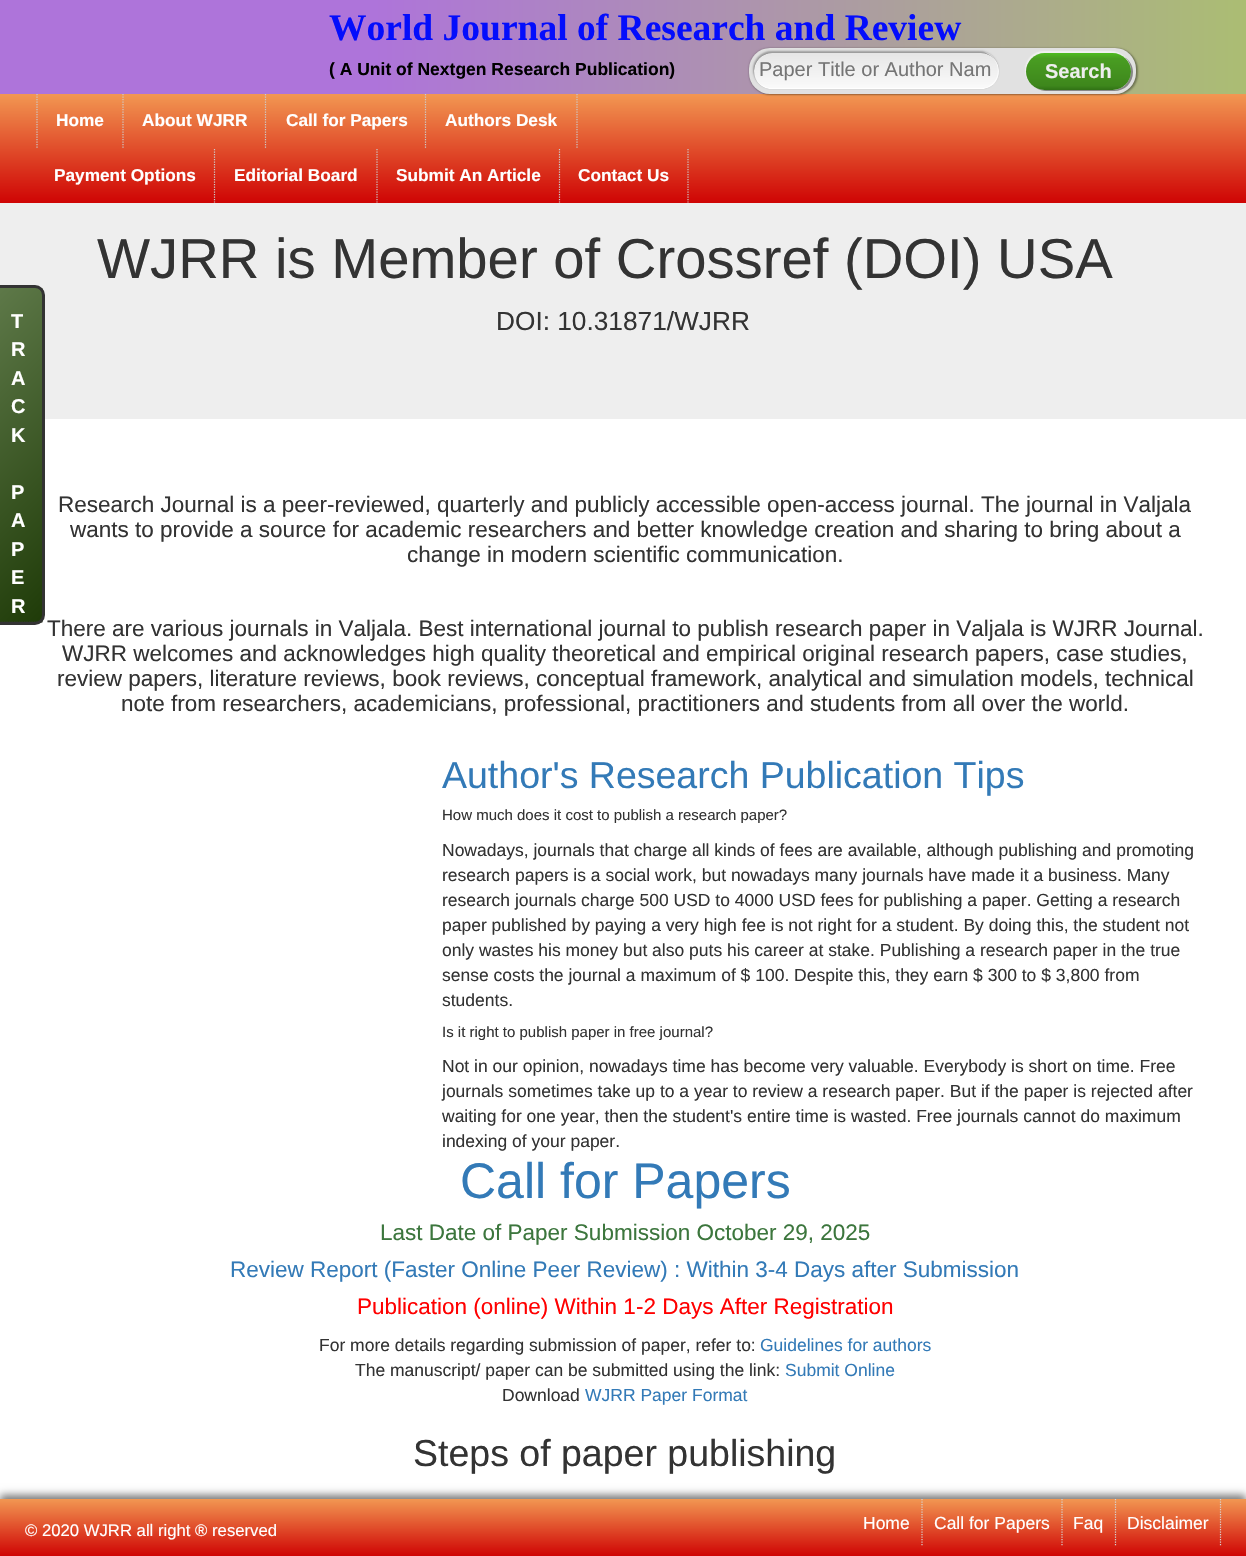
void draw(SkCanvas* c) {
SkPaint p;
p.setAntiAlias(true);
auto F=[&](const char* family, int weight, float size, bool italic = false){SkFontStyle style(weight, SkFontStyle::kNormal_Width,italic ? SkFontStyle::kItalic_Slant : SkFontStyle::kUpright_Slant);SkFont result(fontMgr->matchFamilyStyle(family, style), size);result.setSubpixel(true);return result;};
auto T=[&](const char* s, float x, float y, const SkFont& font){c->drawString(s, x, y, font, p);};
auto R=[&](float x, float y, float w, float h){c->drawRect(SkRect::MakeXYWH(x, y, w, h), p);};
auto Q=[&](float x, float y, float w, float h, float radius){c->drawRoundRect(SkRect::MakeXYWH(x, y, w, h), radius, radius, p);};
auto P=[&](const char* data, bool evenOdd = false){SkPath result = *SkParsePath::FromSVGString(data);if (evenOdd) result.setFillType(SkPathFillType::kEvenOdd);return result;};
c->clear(0xffffffff);
{
const SkColor colors[] = {0xffae74da,0xffae74da,0xffabbd73};
const float stops[] = {.04,.3,1};
const SkPoint ends[] = {{0,29}, {1246,29}};
p.setShader(SkGradientShader::MakeLinear(ends, colors, stops, 3, SkTileMode::kClamp));
p.setAlpha(255);
}
R(0,0,1246,94);
auto f1 = F("Liberation Serif",700,37.5);
p.setShader(nullptr);
p.setColor(0xff040dfc);
T("World Journal of Research and Review",329,40,f1);
auto f2 = F("Liberation Sans",700,17.5);
p.setColor(0xff000000);
T("( A Unit of Nextgen Research Publication)",329,75,f2);
{
const SkColor colors[] = {0xfff29752,0xffcf0404};
const float stops[] = {0,1};
const SkPoint ends[] = {{623,94}, {623,203}};
p.setShader(SkGradientShader::MakeLinear(ends, colors, stops, 2, SkTileMode::kClamp));
p.setAlpha(255);
}
R(0,94,1246,109);
p.setShader(nullptr);
p.setColor(0x4d000000);
p.setMaskFilter(SkMaskFilter::MakeBlur(kNormal_SkBlurStyle, 1));
c->drawRoundRect(SkRect::MakeXYWH(749,48,387,46),21,21,p);
p.setMaskFilter(nullptr);
p.setMaskFilter(SkMaskFilter::MakeBlur(kNormal_SkBlurStyle, 1));
c->drawRoundRect(SkRect::MakeXYWH(750,49,388,46),21,21,p);
p.setMaskFilter(nullptr);
p.setColor(0xffe1e1e1);
Q(749,48,387,46,21);
p.setColor(0x33000000);
p.setMaskFilter(SkMaskFilter::MakeBlur(kNormal_SkBlurStyle, .5));
c->drawRoundRect(SkRect::MakeXYWH(754,53,245,36),18,18,p);
p.setMaskFilter(nullptr);
p.setColor(0x4d000000);
p.setMaskFilter(SkMaskFilter::MakeBlur(kNormal_SkBlurStyle, 1));
c->drawRoundRect(SkRect::MakeXYWH(753,51,245,37),18.5,18.5,p);
p.setMaskFilter(nullptr);
c->save();
c->clipPath(P("M772 53h209c10 0 18 8 18 18c0 10-8 18-18 18h-209c-10 0-18-8-18-18c0-10 8-18 18-18z"),true);
{
const SkColor colors[] = {0xfffafafa,0xffe6e6e6};
const float stops[] = {0,1};
const SkPoint ends[] = {{754,88}, {754,53}};
p.setShader(SkGradientShader::MakeLinear(ends, colors, stops, 2, SkTileMode::kClamp));
p.setAlpha(255);
}
c->drawPath(P("M772 53h209c10 0 18 8 18 18v17h-245v-17c0-10 8-18 18-18z"),p);
c->restore();
p.setShader(nullptr);
p.setColor(0xccffffff);
c->drawPath(P("M993 83c9.5-9.5 4.5-27-8.5-30.5c2.5 0 6 2 7.5 3.5c8 7 9.5 20 2 28z"),p);
p.setColor(0xffffffff);
c->drawPath(P("M984 89h-215c-9-2-15-9-15-18c0 9 8 17 18 17h209c5 0 9-2 12-5l1 1c-3 2-6 4-10 5z"),p);
auto f3 = F("Liberation Sans",400,20);
p.setColor(0xff757575);
T("Paper Title or Author Nam",759,76,f3);
p.setColor(0xff878787);
c->drawPath(P("M1036 88c3 2 7 3 10 3h68c11 0 19-8 19-19c0-6-3-11-8-15c4 4 6 9 6 14c0 11-8 19-19 19h-67c-3 0-6-1-9-2z"),p);
p.setColor(0x80ffffff);
p.setMaskFilter(SkMaskFilter::MakeBlur(kNormal_SkBlurStyle, .5));
c->drawRoundRect(SkRect::MakeXYWH(1025,51,105,38),19,19,p);
p.setMaskFilter(nullptr);
{
const SkColor colors[] = {0xff4fbc20,0xff499d22,0xff3e871c,0xff317215};
const float stops[] = {0,.15,.88,1};
const SkPoint ends[] = {{1026,53}, {1026,90}};
p.setShader(SkGradientShader::MakeLinear(ends, colors, stops, 4, SkTileMode::kClamp));
p.setAlpha(255);
}
Q(1026,53,105,37,18.5);
auto f4 = F("Liberation Sans",700,20);
p.setShader(nullptr);
p.setColor(0xffeeeeee);
T("Search",1045,78,f4);
p.setStroke(true);
p.setStrokeWidth(1.2);
p.setColor(0xffcccccc);
p.setPathEffect(SkDashPathEffect::Make({{1.25f,1.25f}}, 0));
c->drawPath(P("M123 94v55"),p);
p.setPathEffect(nullptr);
p.setPathEffect(SkDashPathEffect::Make({{1.25f,1.25f}}, 0));
c->drawPath(P("M37 94v55"),p);
p.setPathEffect(nullptr);
auto f5 = F("Liberation Sans",700,17.25);
p.setStroke(false);
p.setColor(0xffffffff);
T("Home",56,126,f5);
p.setStroke(true);
p.setColor(0xffcccccc);
p.setPathEffect(SkDashPathEffect::Make({{1.25f,1.25f}}, 0));
c->drawPath(P("M265.5 94v55"),p);
p.setPathEffect(nullptr);
p.setStroke(false);
p.setColor(0xffffffff);
T("About WJRR",142,126,f5);
p.setStroke(true);
p.setColor(0xffcccccc);
p.setPathEffect(SkDashPathEffect::Make({{1.25f,1.25f}}, 0));
c->drawPath(P("M425.5 94v55"),p);
p.setPathEffect(nullptr);
p.setStroke(false);
p.setColor(0xffffffff);
T("Call for Papers",286,126,f5);
p.setStroke(true);
p.setColor(0xffcccccc);
p.setPathEffect(SkDashPathEffect::Make({{1.25f,1.25f}}, 0));
c->drawPath(P("M577 94v55"),p);
p.setPathEffect(nullptr);
p.setStroke(false);
p.setColor(0xffffffff);
T("Authors Desk",445,126,f5);
p.setStroke(true);
p.setColor(0xffcccccc);
p.setPathEffect(SkDashPathEffect::Make({{1.25f,1.25f}}, 0));
c->drawPath(P("M214.5 149v53.5"),p);
p.setPathEffect(nullptr);
p.setStroke(false);
p.setColor(0xffffffff);
T("Payment Options",54,181,f5);
p.setStroke(true);
p.setColor(0xffcccccc);
p.setPathEffect(SkDashPathEffect::Make({{1.25f,1.25f}}, 0));
c->drawPath(P("M377 149v53.5"),p);
p.setPathEffect(nullptr);
p.setStroke(false);
p.setColor(0xffffffff);
T("Editorial Board",234,181,f5);
p.setStroke(true);
p.setColor(0xffcccccc);
p.setPathEffect(SkDashPathEffect::Make({{1.25f,1.25f}}, 0));
c->drawPath(P("M559.5 149v53.5"),p);
p.setPathEffect(nullptr);
p.setStroke(false);
p.setColor(0xffffffff);
T("Submit An Article",396,181,f5);
p.setStroke(true);
p.setColor(0xffcccccc);
p.setPathEffect(SkDashPathEffect::Make({{1.25f,1.25f}}, 0));
c->drawPath(P("M688 149v53.5"),p);
p.setPathEffect(nullptr);
p.setStroke(false);
p.setColor(0xffffffff);
T("Contact Us",578,181,f5);
p.setColor(0xffeeeeee);
R(0,203,1246,216);
auto f6 = F("Liberation Sans",400,56.25);
p.setColor(0xff333333);
T("WJRR is Member of Crossref (DOI) USA",97,278,f6);
auto f7 = F("Liberation Sans",400,26.25);
T("DOI: 10.31871/WJRR",496,330,f7);
c->save();
c->clipPath(P("M-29 285h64c5.5 0 10 4.5 10 10v320c0 5.5-4.5 10-10 10h-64z"),true);
{
const SkColor colors[] = {0xff627d4d,0xff1f3b08};
const float stops[] = {0,1};
const SkPoint ends[] = {{-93,354}, {109,556}};
p.setShader(SkGradientShader::MakeLinear(ends, colors, stops, 2, SkTileMode::kClamp));
p.setAlpha(255);
}
R(0,288,43,335);
c->restore();
p.setStroke(true);
p.setStrokeWidth(3);
p.setShader(nullptr);
p.setColor(0xff333333);
c->drawPath(P("M-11.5 286.5h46.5c4.5 0 8.5 4 8.5 8.5v320c0 4.5-4 8.5-8.5 8.5h-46.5z"),p);
p.setStrokeWidth(1.2);
p.setPathEffect(SkDashPathEffect::Make({{1.25f,1.25f}}, 0));
c->drawPath(P("M-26 622h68.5"),p);
p.setPathEffect(nullptr);
p.setStroke(false);
p.setColor(0xffffffff);
T("T",11,328,f4);
T("R",11,356,f4);
T("A",11,385,f4);
T("C",11,413,f4);
T("K",11,442,f4);
T("P",11,499,f4);
T("A",11,527,f4);
T("P",11,556,f4);
T("E",11,584,f4);
T("R",11,613,f4);
auto f8 = F("Liberation Sans",400,22.5);
p.setColor(0xff333333);
T("Research Journal is a peer-reviewed, quarterly and publicly accessible open-access journal. The journal in Valjala",58,512,f8);
T("wants to provide a source for academic researchers and better knowledge creation and sharing to bring about a",70,537,f8);
T("change in modern scientific communication.",407,562,f8);
T("There are various journals in Valjala. Best international journal to publish research paper in Valjala is WJRR Journal.",47,636,f8);
T("WJRR welcomes and acknowledges high quality theoretical and empirical original research papers, case studies,",62,661,f8);
T("review papers, literature reviews, book reviews, conceptual framework, analytical and simulation models, technical",57,686,f8);
T("note from researchers, academicians, professional, practitioners and students from all over the world.",121,711,f8);
auto f9 = F("Liberation Sans",400,37.5);
p.setColor(0xff337ab7);
T("Author's Research Publication Tips",442,788,f9);
auto f10 = F("Liberation Sans",400,15);
p.setColor(0xff333333);
T("How much does it cost to publish a research paper?",442,820,f10);
auto f11 = F("Liberation Sans",400,17.5);
T("Nowadays, journals that charge all kinds of fees are available, although publishing and promoting",442,856,f11);
T("research papers is a social work, but nowadays many journals have made it a business. Many",442,881,f11);
T("research journals charge 500 USD to 4000 USD fees for publishing a paper. Getting a research",442,906,f11);
T("paper published by paying a very high fee is not right for a student. By doing this, the student not",442,931,f11);
T("only wastes his money but also puts his career at stake. Publishing a research paper in the true",442,956,f11);
T("sense costs the journal a maximum of $ 100. Despite this, they earn $ 300 to $ 3,800 from",442,981,f11);
T("students.",442,1006,f11);
T("Is it right to publish paper in free journal?",442,1037,f10);
T("Not in our opinion, nowadays time has become very valuable. Everybody is short on time. Free",442,1072,f11);
T("journals sometimes take up to a year to review a research paper. But if the paper is rejected after",442,1097,f11);
T("waiting for one year, then the student's entire time is wasted. Free journals cannot do maximum",442,1122,f11);
T("indexing of your paper.",442,1147,f11);
auto f12 = F("Liberation Sans",400,50);
p.setColor(0xff337ab7);
T("Call for Papers",460,1198,f12);
p.setColor(0xff3c763d);
T("Last Date of Paper Submission October 29, 2025",380,1240,f8);
p.setColor(0xff337ab7);
T("Review Report (Faster Online Peer Review) : Within 3-4 Days after Submission",230,1277,f8);
p.setColor(0xffff0000);
T("Publication (online) Within 1-2 Days After Registration",357,1314,f8);
p.setColor(0xff333333);
T("For more details regarding submission of paper, refer to:",319,1351,f11);
p.setColor(0xff337ab7);
T("Guidelines for authors",760,1351,f11);
p.setColor(0xff333333);
T("The manuscript/ paper can be submitted using the link:",355,1376,f11);
p.setColor(0xff337ab7);
T("Submit Online",785,1376,f11);
p.setColor(0xff333333);
T("Download",502,1401,f11);
p.setColor(0xff337ab7);
T("WJRR Paper Format",585,1401,f11);
p.setColor(0xff333333);
T("Steps of paper publishing",413,1466,f9);
p.setColor(0xff777777);
p.setMaskFilter(SkMaskFilter::MakeBlur(kNormal_SkBlurStyle, 4));
c->drawRect(SkRect::MakeXYWH(0,1495,1246,58),p);
p.setMaskFilter(nullptr);
{
const SkColor colors[] = {0xfff29752,0xffcf0404};
const float stops[] = {0,1};
const SkPoint ends[] = {{623,1499}, {623,1556}};
p.setShader(SkGradientShader::MakeLinear(ends, colors, stops, 2, SkTileMode::kClamp));
p.setAlpha(255);
}
R(0,1499,1246,57);
auto f13 = F("Liberation Sans",400,16.7);
p.setShader(nullptr);
p.setColor(0xffffffff);
T("© 2020 WJRR all right ® reserved",25,1536,f13);
p.setStroke(true);
p.setColor(0xffd5d5d5);
p.setPathEffect(SkDashPathEffect::Make({{1.25f,1.25f}}, 0));
c->drawPath(P("M922 1499v47"),p);
p.setPathEffect(nullptr);
p.setStroke(false);
p.setColor(0xffffffff);
T("Home",863,1529,f11);
p.setStroke(true);
p.setColor(0xffd5d5d5);
p.setPathEffect(SkDashPathEffect::Make({{1.25f,1.25f}}, 0));
c->drawPath(P("M1062 1499v47"),p);
p.setPathEffect(nullptr);
p.setStroke(false);
p.setColor(0xffffffff);
T("Call for Papers",934,1529,f11);
p.setStroke(true);
p.setColor(0xffd5d5d5);
p.setPathEffect(SkDashPathEffect::Make({{1.25f,1.25f}}, 0));
c->drawPath(P("M1115.5 1499v47"),p);
p.setPathEffect(nullptr);
p.setStroke(false);
p.setColor(0xffffffff);
T("Faq",1073,1529,f11);
p.setStroke(true);
p.setColor(0xffd5d5d5);
p.setPathEffect(SkDashPathEffect::Make({{1.25f,1.25f}}, 0));
c->drawPath(P("M1220.5 1499v47"),p);
p.setPathEffect(nullptr);
p.setStroke(false);
p.setColor(0xffffffff);
T("Disclaimer",1127,1529,f11);
}
